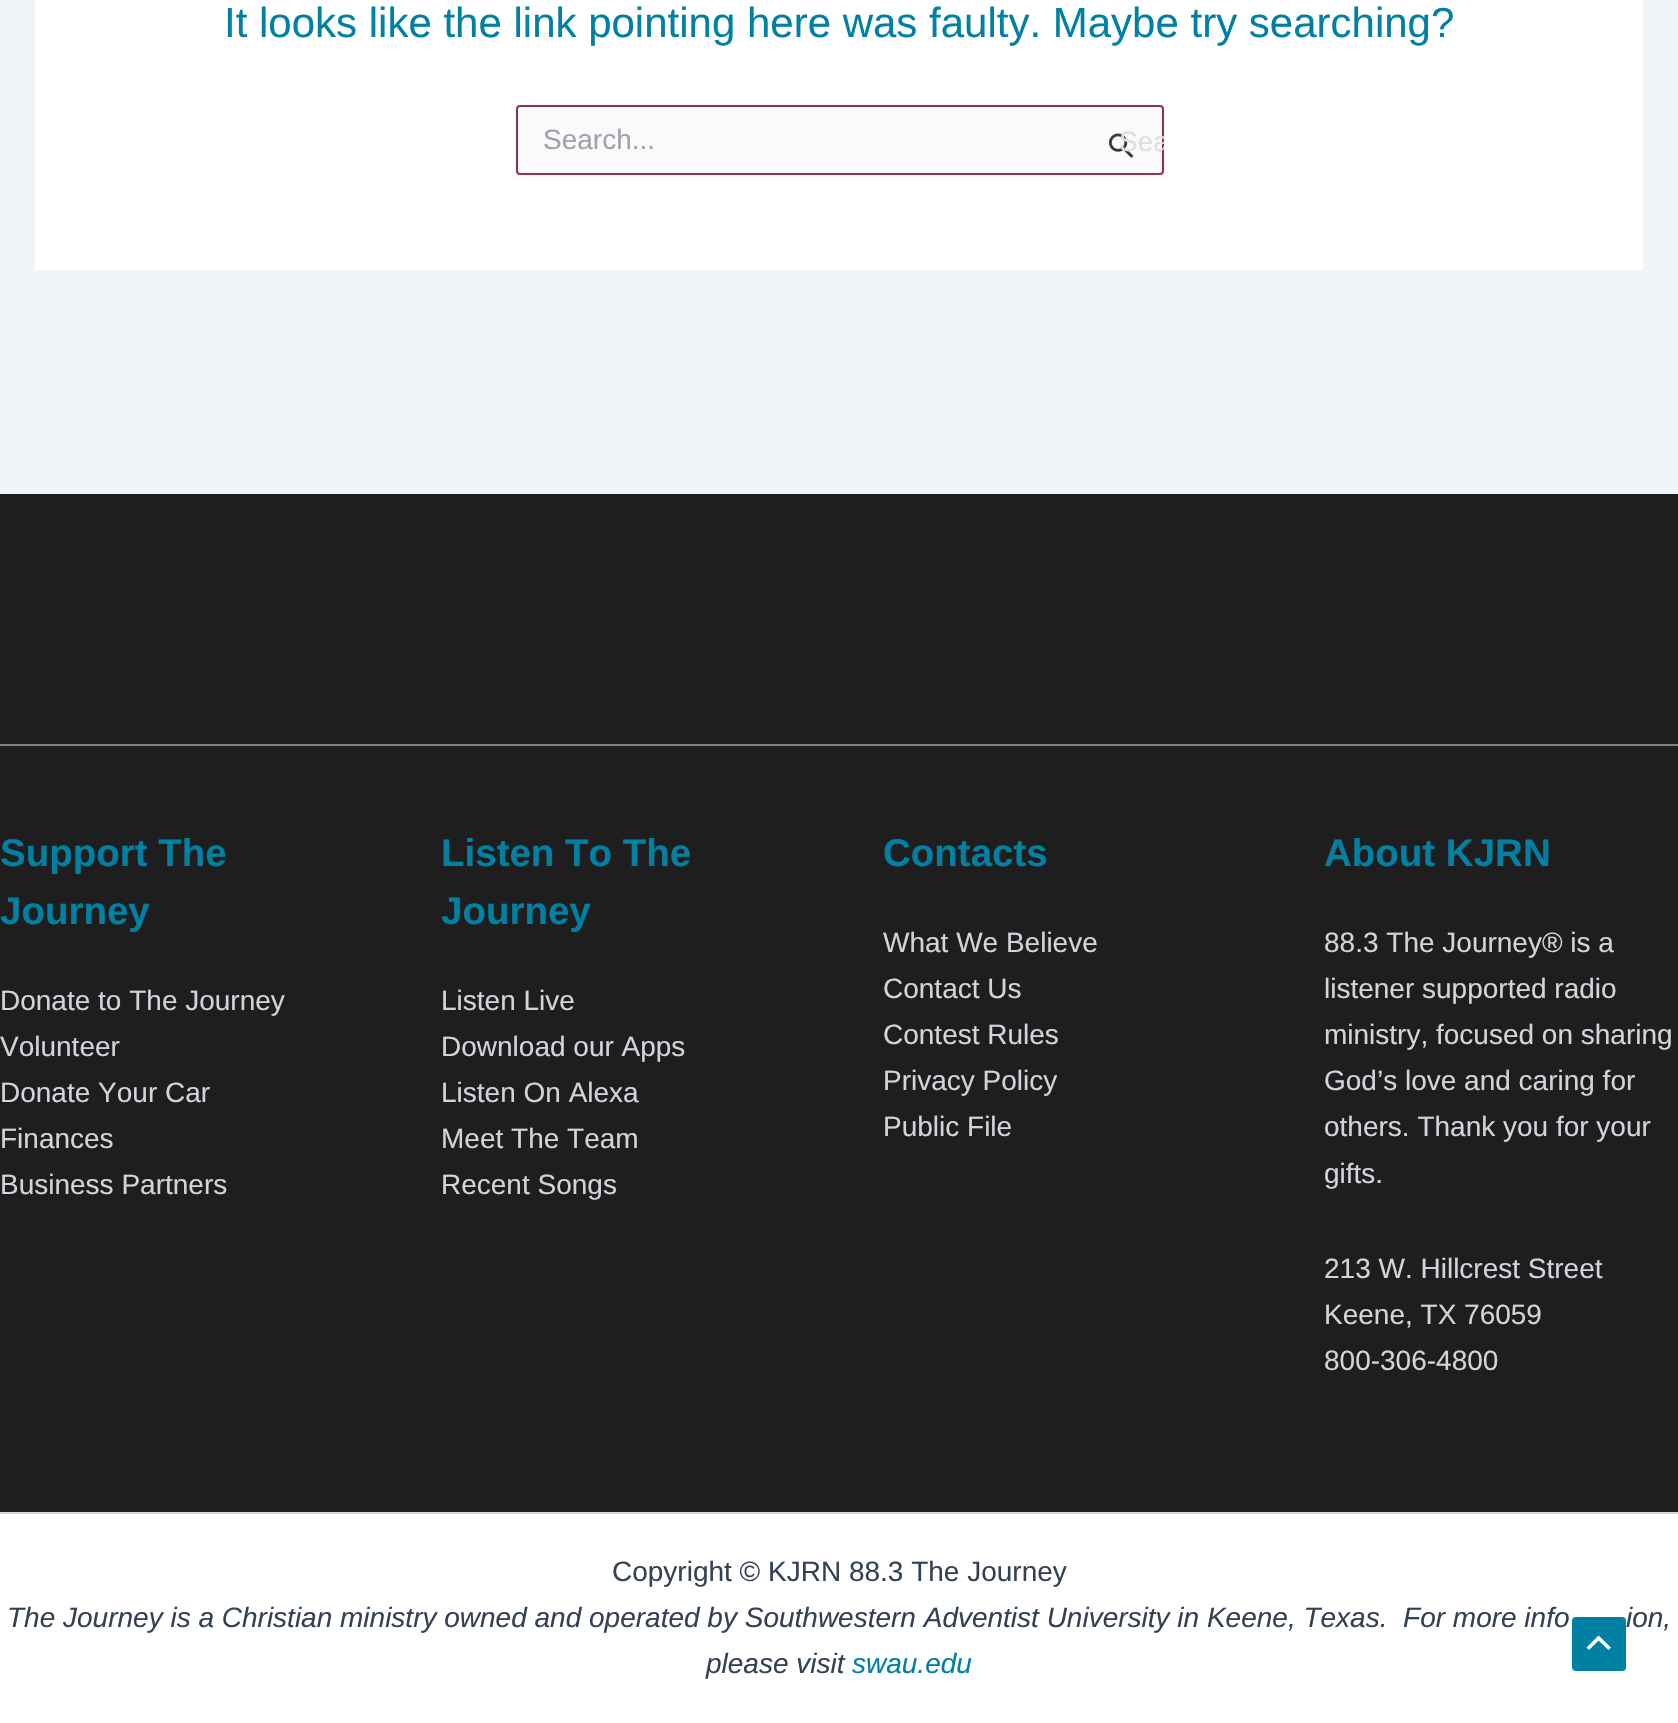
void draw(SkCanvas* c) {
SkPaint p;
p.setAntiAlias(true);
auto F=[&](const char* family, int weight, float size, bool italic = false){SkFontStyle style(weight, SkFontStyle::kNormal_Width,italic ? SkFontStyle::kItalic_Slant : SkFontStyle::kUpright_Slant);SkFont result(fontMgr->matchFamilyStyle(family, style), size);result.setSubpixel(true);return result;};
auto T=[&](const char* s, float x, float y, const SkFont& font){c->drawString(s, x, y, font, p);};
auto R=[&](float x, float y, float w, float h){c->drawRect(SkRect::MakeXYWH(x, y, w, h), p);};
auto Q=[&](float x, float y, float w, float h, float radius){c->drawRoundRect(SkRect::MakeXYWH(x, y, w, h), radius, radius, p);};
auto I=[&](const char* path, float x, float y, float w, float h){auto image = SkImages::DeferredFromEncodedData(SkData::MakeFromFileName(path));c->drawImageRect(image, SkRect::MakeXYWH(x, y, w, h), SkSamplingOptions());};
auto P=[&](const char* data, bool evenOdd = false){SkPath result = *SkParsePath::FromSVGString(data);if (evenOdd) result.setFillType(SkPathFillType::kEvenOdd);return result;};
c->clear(0xfff0f5fa);
p.setColor(0xffffffff);
R(35,0,1608,270);
auto f1 = F("Liberation Sans",400,42);
p.setColor(0xff0080a2);
T("It looks like the link pointing here was faulty. Maybe try searching?",224,37,f1);
p.setColor(0x0d000000);
p.setMaskFilter(SkMaskFilter::MakeBlur(kNormal_SkBlurStyle, 2));
c->drawRoundRect(SkRect::MakeXYWH(516,107,648,70),4,4,p);
p.setMaskFilter(nullptr);
p.setColor(0xfffafafa);
c->drawRoundRect(SkRect::MakeXYWH(517,106,646,68),3,3,p);
p.setStroke(true);
p.setStrokeWidth(2);
p.setColor(0xff87364e);
c->drawRoundRect(SkRect::MakeXYWH(517,106,646,68),3,3,p);
auto f2 = F("Liberation Sans",400,28);
p.setStroke(false);
p.setColor(0xff9ca3af);
T("Search...",543,149,f2);
I("1.png",1109,133,25,25);
c->save();
c->clipPath(P("M1089 105h71c2 0 4 2 4 4v66c0 2-2 4-4 4h-71c-2 0-4-2-4-4v-66c0-2 2-4 4-4z"),true);
p.setColor(0xffe1ddde);
T("Sea",1119,151,f2);
c->restore();
p.setColor(0xff1e1e1e);
R(0,494,1678,250);
R(0,746,1678,766);
p.setColor(0xff838485);
R(0,744,1678,2);
auto f3 = F("Liberation Sans",700,38.5);
p.setColor(0xff0080a2);
T("Support The",0,866,f3);
T("Journey",0,924,f3);
p.setColor(0xffd1d5db);
T("Donate to The Journey",0,1010,f2);
T("Volunteer",0,1056,f2);
T("Donate Your Car",0,1102,f2);
T("Finances",0,1148,f2);
T("Business Partners",0,1194,f2);
p.setColor(0xff0080a2);
T("Listen To The",441,866,f3);
T("Journey",441,924,f3);
p.setColor(0xffd1d5db);
T("Listen Live",441,1010,f2);
T("Download our Apps",441,1056,f2);
T("Listen On Alexa",441,1102,f2);
T("Meet The Team",441,1148,f2);
T("Recent Songs",441,1194,f2);
p.setColor(0xff0080a2);
T("Contacts",883,866,f3);
p.setColor(0xffd1d5db);
T("What We Believe",883,952,f2);
T("Contact Us",883,998,f2);
T("Contest Rules",883,1044,f2);
T("Privacy Policy",883,1090,f2);
T("Public File",883,1136,f2);
p.setColor(0xff0080a2);
T("About KJRN",1324,866,f3);
p.setColor(0xffd1d5db);
T("88.3 The Journey® is a",1324,952,f2);
T("listener supported radio",1324,998,f2);
T("ministry, focused on sharing",1324,1044,f2);
T("God’s love and caring for",1324,1090,f2);
T("others. Thank you for your",1324,1136,f2);
T("gifts.",1324,1183,f2);
T("213 W. Hillcrest Street",1324,1278,f2);
T("Keene, TX 76059",1324,1324,f2);
T("800-306-4800",1324,1370,f2);
p.setColor(0xffffffff);
R(0,1514,1678,209);
p.setColor(0xffd1d5db);
R(0,1512,1678,2);
p.setColor(0xff334155);
T("Copyright © KJRN 88.3 The Journey",612,1581,f2);
auto f4 = F("Liberation Sans",400,28,true);
T("The Journey is a Christian ministry owned and operated by Southwestern Adventist University in Keene, Texas.  For more info",7,1627,f4);
T("ion,",1626,1627,f4);
T("please visit",706,1673,f4);
p.setColor(0xff0080a2);
T("swau.edu",852,1673,f4);
Q(1572,1617,54,54,4);
p.setColor(0xffffffff);
c->drawPath(P("M1611 1647.5l-12.5-12l-12 12l2.5 2.5l9.5-9.5l10 9.5z"),p);
}
